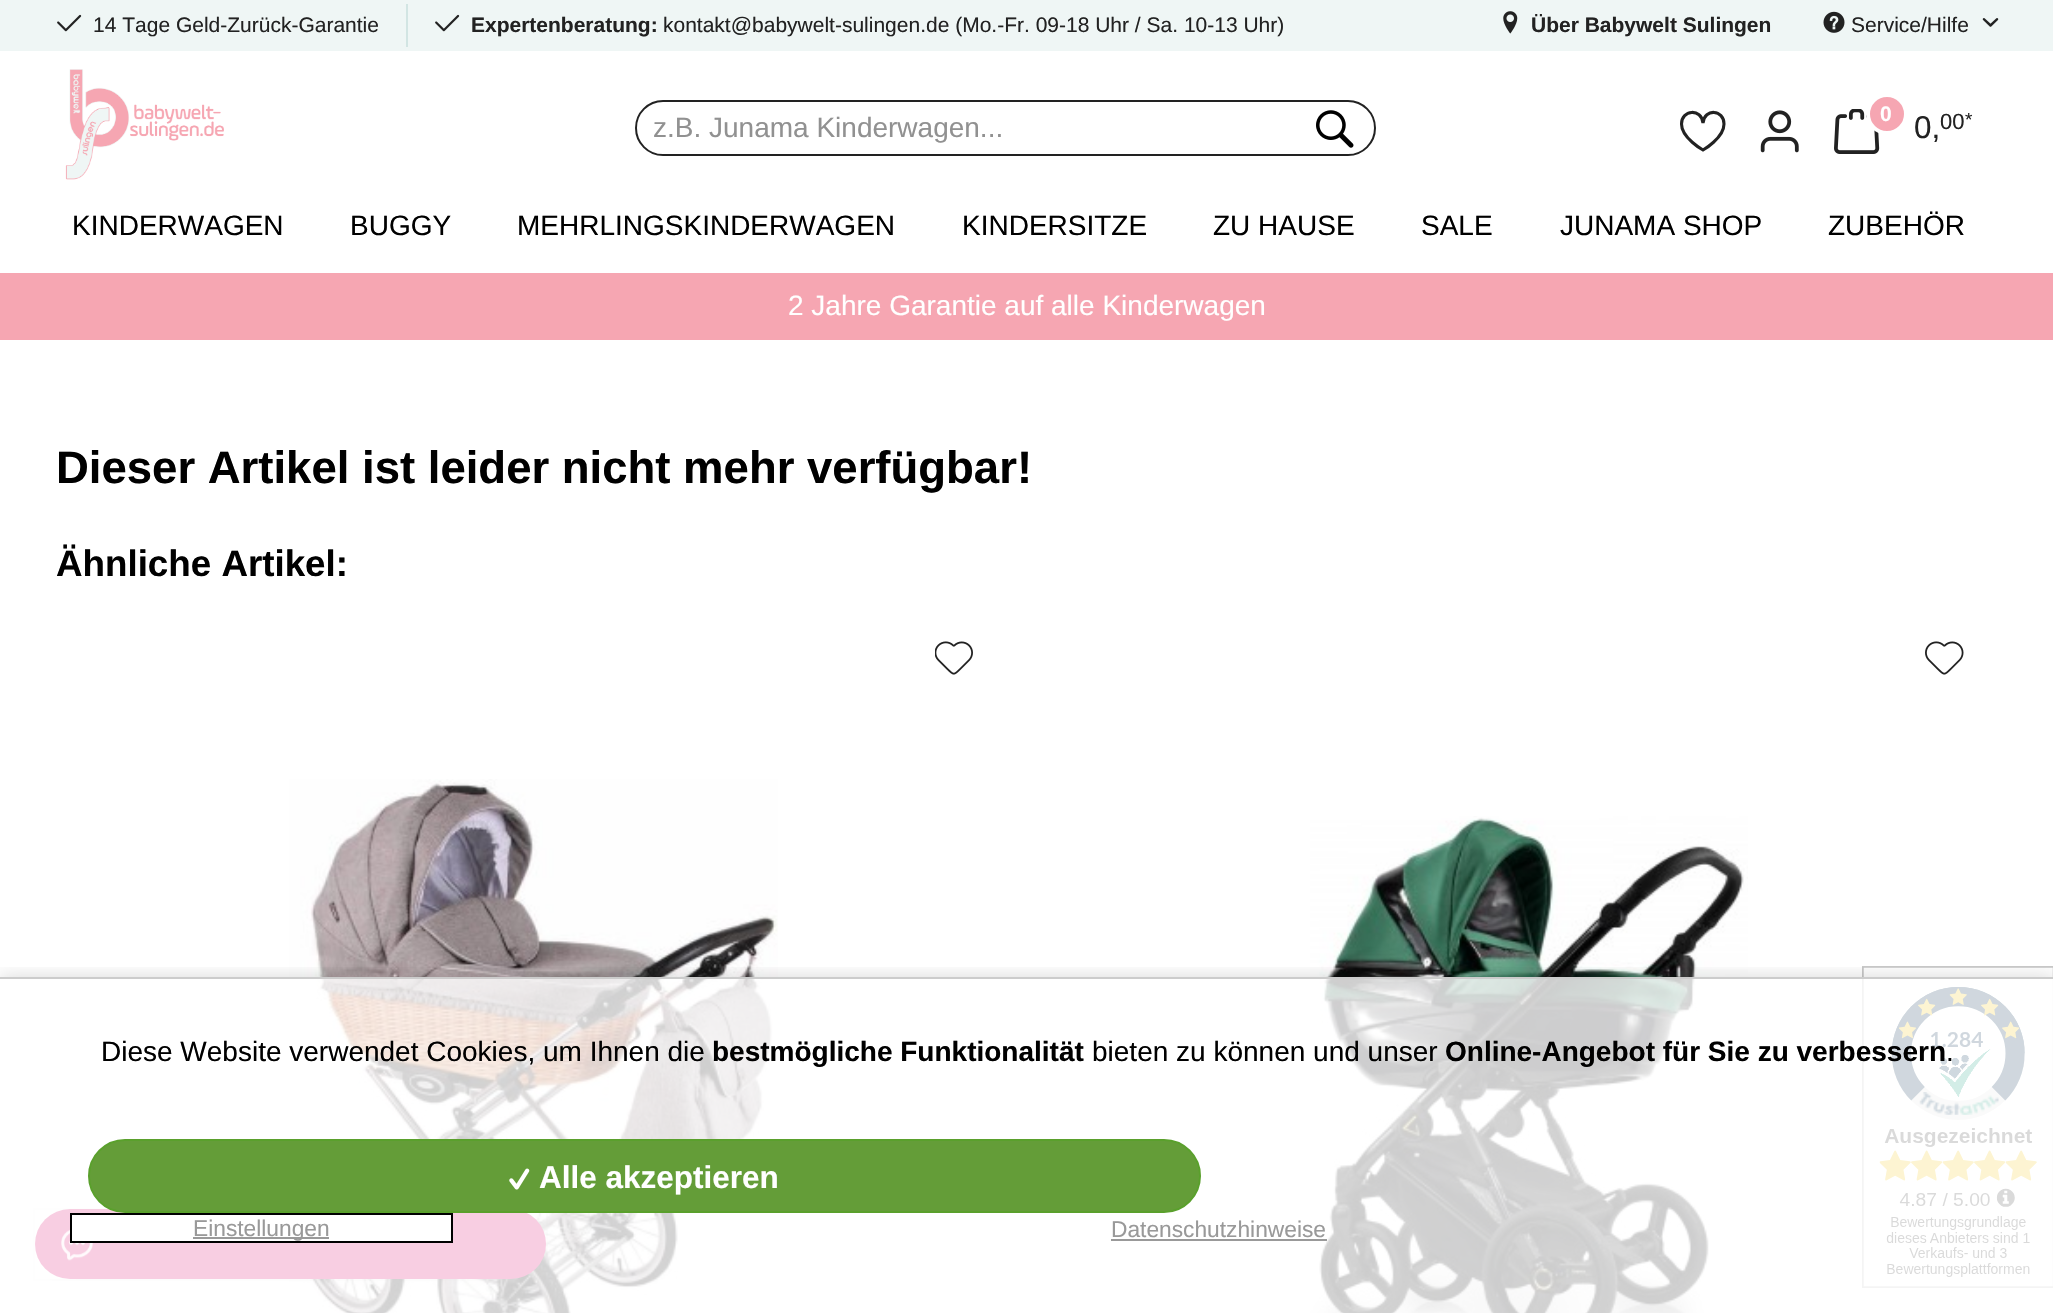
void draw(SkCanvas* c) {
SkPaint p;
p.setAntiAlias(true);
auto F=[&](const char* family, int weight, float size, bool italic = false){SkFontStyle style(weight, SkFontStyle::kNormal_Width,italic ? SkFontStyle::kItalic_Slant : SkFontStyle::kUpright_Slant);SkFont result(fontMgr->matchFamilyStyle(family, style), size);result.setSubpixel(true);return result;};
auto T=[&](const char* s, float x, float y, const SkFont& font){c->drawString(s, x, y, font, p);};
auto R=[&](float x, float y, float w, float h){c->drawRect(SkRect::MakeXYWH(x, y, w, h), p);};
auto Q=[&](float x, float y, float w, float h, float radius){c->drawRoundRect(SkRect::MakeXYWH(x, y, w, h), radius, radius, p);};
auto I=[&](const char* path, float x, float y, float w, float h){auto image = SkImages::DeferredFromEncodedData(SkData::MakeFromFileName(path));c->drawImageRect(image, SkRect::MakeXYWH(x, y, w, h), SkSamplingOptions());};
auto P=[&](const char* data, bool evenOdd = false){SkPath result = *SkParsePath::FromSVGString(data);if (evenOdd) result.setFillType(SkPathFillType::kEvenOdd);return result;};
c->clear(0xffffffff);
p.setColor(0xffeff6f5);
R(0,0,2053,51);
I("1.png",57,14,25,18);
auto f1 = F("Liberation Sans",400,21);
p.setColor(0xff222222);
T("14 Tage Geld-Zurück-Garantie",93,32,f1);
p.setColor(0xffd2e5e3);
R(406,4,2,43);
I("1.png",435,14,25,18);
auto f2 = F("Liberation Sans",700,21);
p.setColor(0xff222222);
T("Expertenberatung:",471,32,f2);
T("kontakt@babywelt-sulingen.de (Mo.-Fr. 09-18 Uhr / Sa. 10-13 Uhr)",663,32,f1);
I("2.png",1503,11,15,23);
T("Über Babywelt Sulingen",1531,32,f2);
I("3.png",1823,11,22,22);
T("Service/Hilfe",1851,32,f1);
I("4.png",1982,18,17,9);
I("5.png",65,69,159,111);
p.setStroke(true);
p.setStrokeWidth(2);
c->drawRoundRect(SkRect::MakeXYWH(636,101,739,54),27,27,p);
auto f3 = F("Liberation Sans",400,28);
p.setStroke(false);
p.setColor(0xff919191);
T("z.B. Junama Kinderwagen...",653,137,f3);
I("6.png",1316,110,38,38);
p.setStroke(true);
p.setStrokeWidth(3.1);
p.setColor(0xff222222);
c->drawPath(P("M1703 150c0 0-21.5-12-21.5-26c0-14.5 20-16 21.5-1c1.5-15 21-13.5 21 1c0 14-21 26-21 26z"),p);
I("7.png",1760,110,39,43);
I("8.png",1834,109,46,45);
p.setStroke(false);
p.setColor(0xfff6a6b2);
c->drawCircle(1887,114,19,p);
p.setStroke(true);
p.setStrokeWidth(4);
p.setColor(0xffffffff);
c->drawCircle(1887,114,19,p);
p.setStroke(false);
T("0",1880,121,f2);
auto f4 = F("Liberation Sans",400,31.5);
p.setColor(0xff222222);
T("0,",1914,138,f4);
auto f5 = F("Liberation Sans",400,22);
T("00",1940,129,f5);
auto f6 = F("Liberation Sans",400,19);
T("*",1965,126,f6);
p.setColor(0xff000000);
T("KINDERWAGEN",72,235,f3);
T("BUGGY",350,235,f3);
T("MEHRLINGSKINDERWAGEN",517,235,f3);
T("KINDERSITZE",962,235,f3);
T("ZU HAUSE",1213,235,f3);
T("SALE",1421,235,f3);
T("JUNAMA SHOP",1560,235,f3);
T("ZUBEHÖR",1828,235,f3);
p.setColor(0xfff6a6b2);
R(0,273,2053,67);
p.setColor(0xffffffff);
T("2 Jahre Garantie auf alle Kinderwagen",788,315,f3);
auto f7 = F("Liberation Sans",700,45.5);
p.setColor(0xff000000);
T("Dieser Artikel ist leider nicht mehr verfügbar!",56,483,f7);
auto f8 = F("Liberation Sans",700,36.75);
T("Ähnliche Artikel:",56,576,f8);
I("9.png",935,641,38,34);
I("10.png",289,779,489,534);
I("11.png",1925,641,39,34);
I("12.png",1310,816,438,497);
I("14.png",1862,966,191,322);
p.setColor(0x14161a1e);
p.setMaskFilter(SkMaskFilter::MakeBlur(kNormal_SkBlurStyle, 7));
c->drawRoundRect(SkRect::MakeXYWH(46,1227,490,49),24.5,24.5,p);
p.setMaskFilter(nullptr);
p.setStroke(true);
p.setStrokeWidth(2);
p.setColor(0x0a161a1e);
c->drawRect(SkRect::MakeXYWH(34,1209,513,71),p);
p.setStroke(false);
p.setColor(0xffdc066b);
Q(35,1209,511,70,35);
I("15.png",61,1229,32,32);
c->save();
c->clipRect(SkRect::MakeXYWH(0,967,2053,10));
p.setColor(0x26000000);
p.setMaskFilter(SkMaskFilter::MakeBlur(kNormal_SkBlurStyle, 9));
c->drawRect(SkRect::MakeXYWH(0,977,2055,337),p);
p.setMaskFilter(nullptr);
c->restore();
p.setColor(0xccffffff);
R(33,979,2020,334);
p.setColor(0xffcccccc);
R(0,977,2053,2);
p.setColor(0xff000000);
T("Diese Website verwendet Cookies, um Ihnen die",101,1061,f3);
auto f9 = F("Liberation Sans",700,28);
T("bestmögliche Funktionalität",712,1061,f9);
T("bieten zu können und unser",1092,1061,f3);
T("Online-Angebot für Sie zu verbessern",1445,1061,f9);
T(".",1946,1061,f3);
p.setColor(0xff649d38);
c->drawRoundRect(SkRect::MakeXYWH(89,1140,1111,72),36,36,p);
p.setStroke(true);
p.setColor(0xff5aa02c);
c->drawRoundRect(SkRect::MakeXYWH(89,1140,1111,72),36,36,p);
I("13.png",509,1168,21,22);
auto f10 = F("Liberation Sans",700,31.5);
p.setStroke(false);
p.setColor(0xffffffff);
T("Alle akzeptieren",539,1188,f10);
c->drawRect(SkRect::MakeXYWH(71,1214,381,28),p);
p.setStroke(true);
p.setColor(0xff000000);
c->drawRect(SkRect::MakeXYWH(71,1214,381,28),p);
p.setStroke(false);
p.setColor(0xff999999);
R(193,1237,136,2);
auto f11 = F("Liberation Sans",400,22.75);
T("Einstellungen",193,1236,f11);
T("Datenschutzhinweise",1111,1237,f11);
R(1111,1239,216,2);
}
